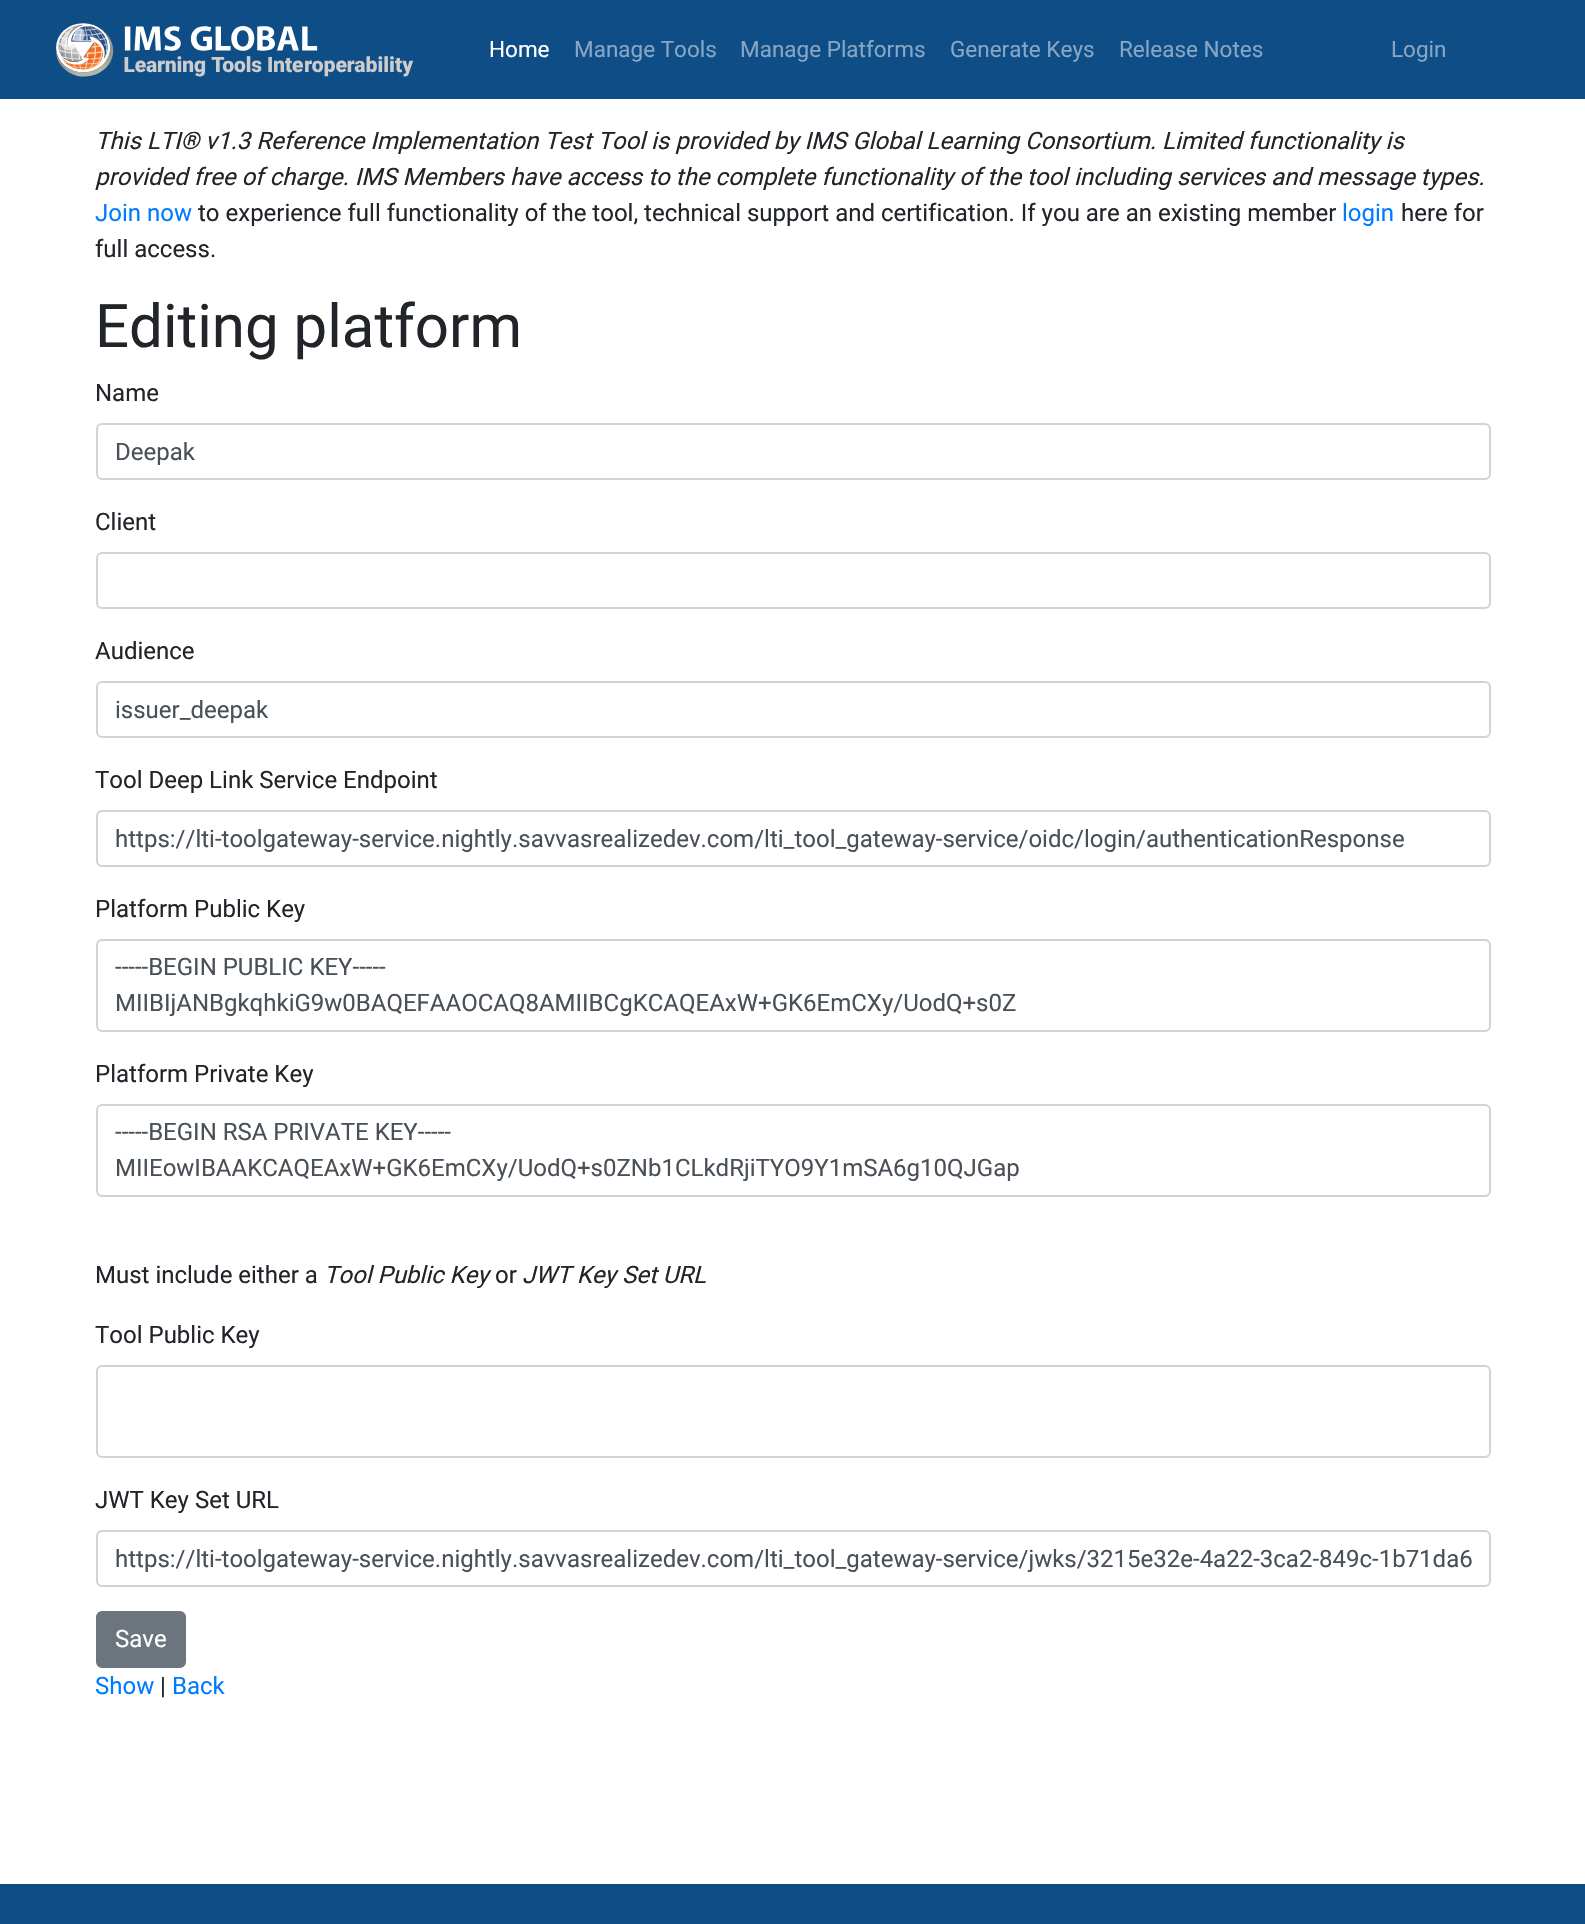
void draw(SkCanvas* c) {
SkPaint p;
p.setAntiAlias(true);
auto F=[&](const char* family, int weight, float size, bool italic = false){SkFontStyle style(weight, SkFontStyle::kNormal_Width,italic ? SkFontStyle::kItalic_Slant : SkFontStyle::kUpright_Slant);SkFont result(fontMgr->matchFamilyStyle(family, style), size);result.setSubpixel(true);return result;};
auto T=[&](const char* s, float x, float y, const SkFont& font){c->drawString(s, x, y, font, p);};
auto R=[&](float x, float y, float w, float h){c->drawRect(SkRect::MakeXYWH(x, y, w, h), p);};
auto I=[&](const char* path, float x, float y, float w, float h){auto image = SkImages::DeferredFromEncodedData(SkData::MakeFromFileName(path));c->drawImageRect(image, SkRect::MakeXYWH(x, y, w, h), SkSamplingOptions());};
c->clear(0xffffffff);
p.setColor(0xff0f4d87);
R(0,0,1585,99);
I("1.png",56,23,358,54);
auto f1 = F("Roboto",400,22.5);
p.setColor(0xffffffff);
T("Home",489,57,f1);
p.setColor(0xff87a6c3);
T("Manage Tools",574,57,f1);
T("Manage Platforms",740,57,f1);
T("Generate Keys",950,57,f1);
T("Release Notes",1119,57,f1);
T("Login",1391,57,f1);
auto f2 = F("Roboto",400,24,true);
p.setColor(0xff212529);
T("This LTI® v1.3 Reference Implementation Test Tool is provided by IMS Global Learning Consortium. Limited functionality is",95,149,f2);
T("provided free of charge. IMS Members have access to the complete functionality of the tool including services and message types.",95,185,f2);
auto f3 = F("Roboto",400,24);
p.setColor(0xff007bff);
T("Join now",95,221,f3);
p.setColor(0xff212529);
T("to experience full functionality of the tool, technical support and certification. If you are an existing member",198,221,f3);
p.setColor(0xff007bff);
T("login",1342,221,f3);
p.setColor(0xff212529);
T("here for",1401,221,f3);
T("full access.",95,257,f3);
auto f4 = F("Roboto",400,60);
T("Editing platform",95,347,f4);
T("Name",95,401,f3);
p.setStroke(true);
p.setStrokeWidth(2);
p.setColor(0xffced4da);
c->drawRoundRect(SkRect::MakeXYWH(97,424,1393,55),5,5,p);
p.setStroke(false);
p.setColor(0xff495057);
T("Deepak",115,460,f3);
p.setColor(0xff212529);
T("Client",95,530,f3);
p.setStroke(true);
p.setColor(0xffced4da);
c->drawRoundRect(SkRect::MakeXYWH(97,553,1393,55),5,5,p);
p.setStroke(false);
p.setColor(0xff212529);
T("Audience",95,659,f3);
p.setStroke(true);
p.setColor(0xffced4da);
c->drawRoundRect(SkRect::MakeXYWH(97,682,1393,55),5,5,p);
p.setStroke(false);
p.setColor(0xff495057);
T("issuer_deepak",115,718,f3);
p.setColor(0xff212529);
T("Tool Deep Link Service Endpoint",95,788,f3);
p.setStroke(true);
p.setColor(0xffced4da);
c->drawRoundRect(SkRect::MakeXYWH(97,811,1393,55),5,5,p);
p.setStroke(false);
p.setColor(0xff495057);
T("https://lti-toolgateway-service.nightly.savvasrealizedev.com/lti_tool_gateway-service/oidc/login/authenticationResponse",115,847,f3);
p.setColor(0xff212529);
T("Platform Public Key",95,917,f3);
p.setStroke(true);
p.setColor(0xffced4da);
c->drawRoundRect(SkRect::MakeXYWH(97,940,1393,91),5,5,p);
p.setStroke(false);
p.setColor(0xff495057);
T("-----BEGIN PUBLIC KEY-----",115,975,f3);
T("MIIBIjANBgkqhkiG9w0BAQEFAAOCAQ8AMIIBCgKCAQEAxW+GK6EmCXy/UodQ+s0Z",115,1011,f3);
p.setColor(0xff212529);
T("Platform Private Key",95,1082,f3);
p.setStroke(true);
p.setColor(0xffced4da);
c->drawRoundRect(SkRect::MakeXYWH(97,1105,1393,91),5,5,p);
p.setStroke(false);
p.setColor(0xff495057);
T("-----BEGIN RSA PRIVATE KEY-----",115,1140,f3);
T("MIIEowIBAAKCAQEAxW+GK6EmCXy/UodQ+s0ZNb1CLkdRjiTYO9Y1mSA6g10QJGap",115,1176,f3);
p.setColor(0xff212529);
T("Must include either a",95,1283,f3);
T("Tool Public Key",324,1283,f2);
T("or",495,1283,f3);
T("JWT Key Set URL",522,1283,f2);
T("Tool Public Key",95,1343,f3);
p.setStroke(true);
p.setColor(0xffced4da);
c->drawRoundRect(SkRect::MakeXYWH(97,1366,1393,91),5,5,p);
p.setStroke(false);
p.setColor(0xff212529);
T("JWT Key Set URL",95,1508,f3);
p.setStroke(true);
p.setColor(0xffced4da);
c->drawRoundRect(SkRect::MakeXYWH(97,1531,1393,55),5,5,p);
p.setStroke(false);
p.setColor(0xff495057);
T("https://lti-toolgateway-service.nightly.savvasrealizedev.com/lti_tool_gateway-service/jwks/3215e32e-4a22-3ca2-849c-1b71da6",115,1567,f3);
p.setColor(0xff6c757d);
c->drawRoundRect(SkRect::MakeXYWH(97,1612,88,55),5,5,p);
p.setStroke(true);
c->drawRoundRect(SkRect::MakeXYWH(97,1612,88,55),5,5,p);
p.setStroke(false);
p.setColor(0xffffffff);
T("Save",115,1647,f3);
p.setColor(0xff007bff);
T("Show",95,1694,f3);
p.setColor(0xff212529);
T("|",160,1694,f3);
p.setColor(0xff007bff);
T("Back",172,1694,f3);
p.setColor(0xff0f4d87);
R(0,1884,1585,40);
}
